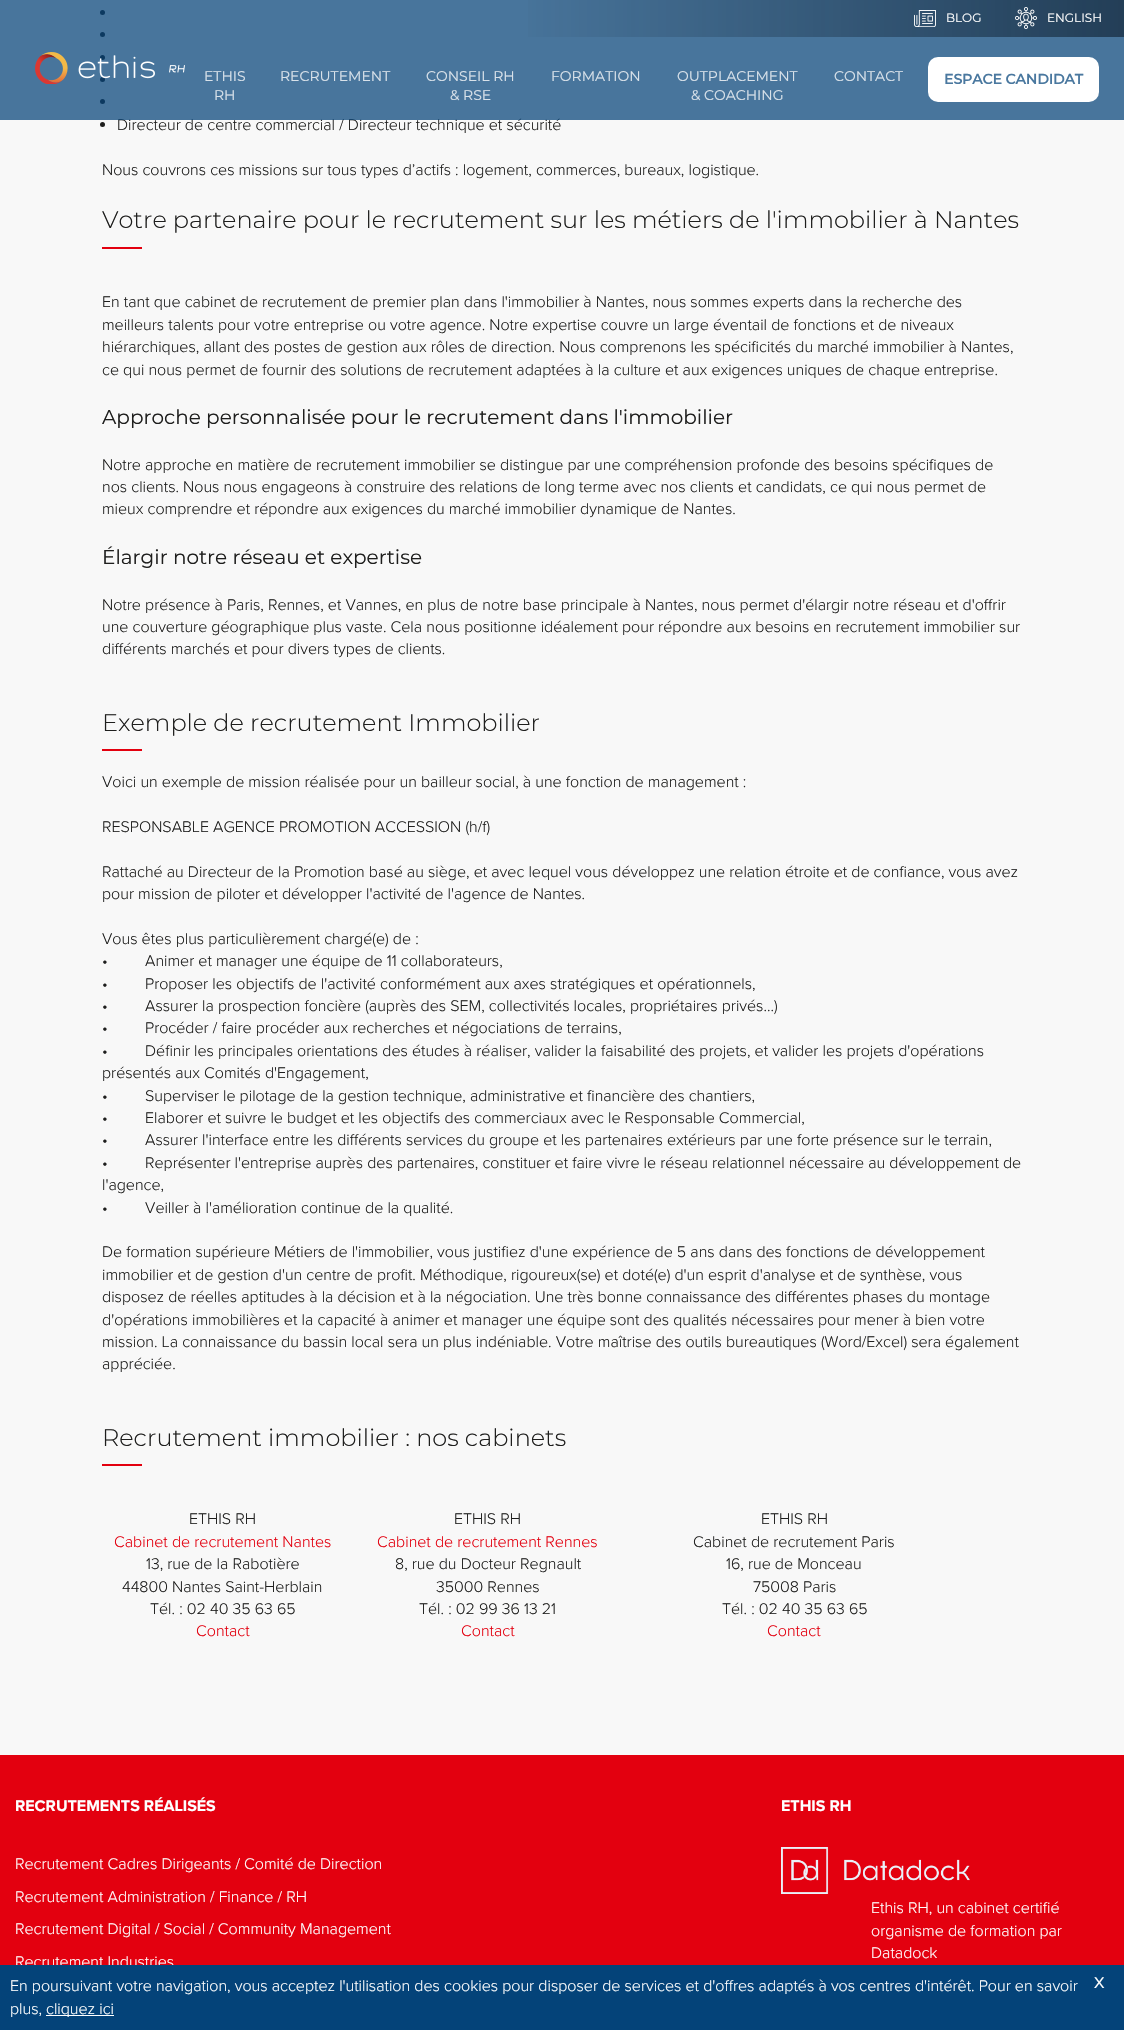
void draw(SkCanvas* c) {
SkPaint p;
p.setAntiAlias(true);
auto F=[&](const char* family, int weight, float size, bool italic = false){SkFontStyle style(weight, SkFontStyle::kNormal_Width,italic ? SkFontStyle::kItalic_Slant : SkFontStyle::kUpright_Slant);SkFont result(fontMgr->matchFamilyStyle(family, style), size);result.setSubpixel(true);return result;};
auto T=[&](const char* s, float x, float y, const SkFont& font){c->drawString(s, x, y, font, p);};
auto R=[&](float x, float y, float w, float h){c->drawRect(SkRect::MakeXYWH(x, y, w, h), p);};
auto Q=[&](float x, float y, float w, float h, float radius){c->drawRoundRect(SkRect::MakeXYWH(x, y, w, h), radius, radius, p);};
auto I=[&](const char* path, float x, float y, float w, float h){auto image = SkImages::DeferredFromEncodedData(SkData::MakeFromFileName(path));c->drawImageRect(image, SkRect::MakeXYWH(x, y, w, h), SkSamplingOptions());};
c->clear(0xfff8f8f8);
p.setColor(0xff1e1e1d);
c->drawCircle(102.5,12.5,2.5,p);
c->drawCircle(102.5,34.5,2.5,p);
c->drawCircle(102.5,57.5,2.5,p);
c->drawCircle(102.5,79.5,2.5,p);
c->drawCircle(102.5,101.5,2.5,p);
auto f1 = F("Proxima Nova",300,16);
T("Directeur de centre commercial / Directeur technique et sécurité",117,130,f1);
p.setColor(0xb8044379);
R(0,0,1124,120);
{
const SkColor colors[] = {0x000b1b2b,0x9c0b1b2b};
const float stops[] = {.45,1};
const SkPoint ends[] = {{0,19}, {1124,18}};
p.setShader(SkGradientShader::MakeLinear(ends, colors, stops, 2, SkTileMode::kClamp));
p.setAlpha(255);
}
R(528,0,596,37);
I("1.png",914,10,22,17);
auto f2 = F("Montserrat",400,12);
p.setShader(nullptr);
p.setColor(0xffffffff);
T("BLOG",946,22,f2);
I("2.png",1015,7,22,22);
T("ENGLISH",1047,22,f2);
I("3.png",35,52,150,32);
auto f3 = F("Montserrat",400,14);
p.setColor(0xffd9e2ea);
T("ETHIS",204,81,f3);
T("RH",214,100,f3);
T("RECRUTEMENT",280,81,f3);
T("CONSEIL RH",426,81,f3);
T("& RSE",450,100,f3);
T("FORMATION",551,81,f3);
T("OUTPLACEMENT",677,81,f3);
T("& COACHING",691,100,f3);
T("CONTACT",834,81,f3);
p.setColor(0xffffffff);
Q(928,57,171,45,10);
auto f4 = F("Montserrat",700,14);
p.setColor(0xff4a789f);
T("ESPACE CANDIDAT",944,84,f4);
p.setColor(0xff1e1e1d);
c->drawCircle(102.5,124.5,2.5,p);
T("Nous couvrons ces missions sur tous types d’actifs : logement, commerces, bureaux, logistique.",102,175,f1);
auto f5 = F("Montserrat",300,24);
T("Votre partenaire pour le recrutement sur les métiers de l'immobilier à Nantes",102,228,f5);
p.setColor(0xffe3000f);
R(102,247,40,2);
p.setColor(0xff1e1e1d);
T("En tant que cabinet de recrutement de premier plan dans l'immobilier à Nantes, nous sommes experts dans la recherche des",102,307,f1);
T("meilleurs talents pour votre entreprise ou votre agence. Notre expertise couvre un large éventail de fonctions et de niveaux",102,330,f1);
T("hiérarchiques, allant des postes de gestion aux rôles de direction. Nous comprenons les spécificités du marché immobilier à Nantes,",102,352,f1);
T("ce qui nous permet de fournir des solutions de recrutement adaptées à la culture et aux exigences uniques de chaque entreprise.",102,375,f1);
auto f6 = F("Montserrat",400,20);
T("Approche personnalisée pour le recrutement dans l'immobilier",102,424,f6);
T("Notre approche en matière de recrutement immobilier se distingue par une compréhension profonde des besoins spécifiques de",102,470,f1);
T("nos clients. Nous nous engageons à construire des relations de long terme avec nos clients et candidats, ce qui nous permet de",102,492,f1);
T("mieux comprendre et répondre aux exigences du marché immobilier dynamique de Nantes.",102,514,f1);
T("Élargir notre réseau et expertise",102,564,f6);
T("Notre présence à Paris, Rennes, et Vannes, en plus de notre base principale à Nantes, nous permet d'élargir notre réseau et d'offrir",102,610,f1);
T("une couverture géographique plus vaste. Cela nous positionne idéalement pour répondre aux besoins en recrutement immobilier sur",102,632,f1);
T("différents marchés et pour divers types de clients.",102,654,f1);
T("Exemple de recrutement Immobilier",102,731,f5);
p.setColor(0xffe3000f);
R(102,749,40,2);
p.setColor(0xff1e1e1d);
T("Voici un exemple de mission réalisée pour un bailleur social, à une fonction de management :",102,787,f1);
T("RESPONSABLE AGENCE PROMOTION ACCESSION (h/f)",102,832,f1);
T("Rattaché au Directeur de la Promotion basé au siège, et avec lequel vous développez une relation étroite et de confiance, vous avez",102,877,f1);
T("pour mission de piloter et développer l'activité de l'agence de Nantes.",102,899,f1);
T("Vous êtes plus particulièrement chargé(e) de :",102,944,f1);
T("•         Animer et manager une équipe de 11 collaborateurs,",102,966,f1);
T("•         Proposer les objectifs de l'activité conformément aux axes stratégiques et opérationnels,",102,989,f1);
T("•         Assurer la prospection foncière (auprès des SEM, collectivités locales, propriétaires privés…)",102,1011,f1);
T("•         Procéder / faire procéder aux recherches et négociations de terrains,",102,1033,f1);
T("•         Définir les principales orientations des études à réaliser, valider la faisabilité des projets, et valider les projets d'opérations",102,1056,f1);
T("présentés aux Comités d'Engagement,",102,1078,f1);
T("•         Superviser le pilotage de la gestion technique, administrative et financière des chantiers,",102,1101,f1);
T("•         Elaborer et suivre le budget et les objectifs des commerciaux avec le Responsable Commercial,",102,1123,f1);
T("•         Assurer l'interface entre les différents services du groupe et les partenaires extérieurs par une forte présence sur le terrain,",102,1145,f1);
T("•         Représenter l'entreprise auprès des partenaires, constituer et faire vivre le réseau relationnel nécessaire au développement de",102,1168,f1);
T("l'agence,",102,1190,f1);
T("•         Veiller à l'amélioration continue de la qualité.",102,1213,f1);
T("De formation supérieure Métiers de l'immobilier, vous justifiez d'une expérience de 5 ans dans des fonctions de développement",102,1257,f1);
T("immobilier et de gestion d'un centre de profit. Méthodique, rigoureux(se) et doté(e) d'un esprit d'analyse et de synthèse, vous",102,1280,f1);
T("disposez de réelles aptitudes à la décision et à la négociation. Une très bonne connaissance des différentes phases du montage",102,1302,f1);
T("d'opérations immobilières et la capacité à animer et manager une équipe sont des qualités nécessaires pour mener à bien votre",102,1325,f1);
T("mission. La connaissance du bassin local sera un plus indéniable. Votre maîtrise des outils bureautiques (Word/Excel) sera également",102,1347,f1);
T("appréciée.",102,1369,f1);
T("Recrutement immobilier : nos cabinets",102,1446,f5);
p.setColor(0xffe3000f);
R(102,1464,40,2);
p.setColor(0xff1e1e1d);
T("ETHIS RH",189,1524,f1);
p.setColor(0xffe3000f);
T("Cabinet de recrutement Nantes",114,1547,f1);
p.setColor(0xff1e1e1d);
T("13, rue de la Rabotière",146,1569,f1);
T("44800 Nantes Saint-Herblain",122,1592,f1);
T("Tél. : 02 40 35 63 65",150,1614,f1);
p.setColor(0xffe3000f);
T("Contact",196,1636,f1);
p.setColor(0xff1e1e1d);
T("ETHIS RH",454,1524,f1);
p.setColor(0xffe3000f);
T("Cabinet de recrutement Rennes",377,1547,f1);
p.setColor(0xff1e1e1d);
T("8, rue du Docteur Regnault",395,1569,f1);
T("35000 Rennes",436,1592,f1);
T("Tél. : 02 99 36 13 21",419,1614,f1);
p.setColor(0xffe3000f);
T("Contact",461,1636,f1);
p.setColor(0xff1e1e1d);
T("ETHIS RH",761,1524,f1);
T("Cabinet de recrutement Paris",693,1547,f1);
T("16, rue de Monceau",726,1569,f1);
T("75008 Paris",753,1592,f1);
T("Tél. : 02 40 35 63 65",722,1614,f1);
p.setColor(0xffe3000f);
T("Contact",767,1636,f1);
R(0,1755,1124,210);
auto f7 = F("Proxima Nova",700,16);
p.setColor(0xffffffff);
T("RECRUTEMENTS RÉALISÉS",15,1811,f7);
T("Recrutement Cadres Dirigeants / Comité de Direction",15,1869,f1);
T("Recrutement Administration / Finance / RH",15,1902,f1);
T("Recrutement Digital / Social / Community Management",15,1934,f1);
T("Recrutement Industries",15,1967,f1);
T("ETHIS RH",781,1811,f7);
I("4.png",781,1847,189,47);
T("Ethis RH, un cabinet certifié",871,1913,f1);
T("organisme de formation par",871,1936,f1);
T("Datadock",871,1958,f1);
p.setColor(0xff044379);
R(0,1965,1124,65);
p.setColor(0xffffffff);
T("En poursuivant votre navigation, vous acceptez l'utilisation des cookies pour disposer de services et d'offres adaptés à vos centres d'intérêt. Pour en savoir",10,1991,f1);
T("plus,",10,2014,f1);
R(46,2015,68,1);
T("cliquez ici",46,2014,f1);
auto f8 = F("Proxima Nova",400,16);
T("X",1094,1988,f8);
}
